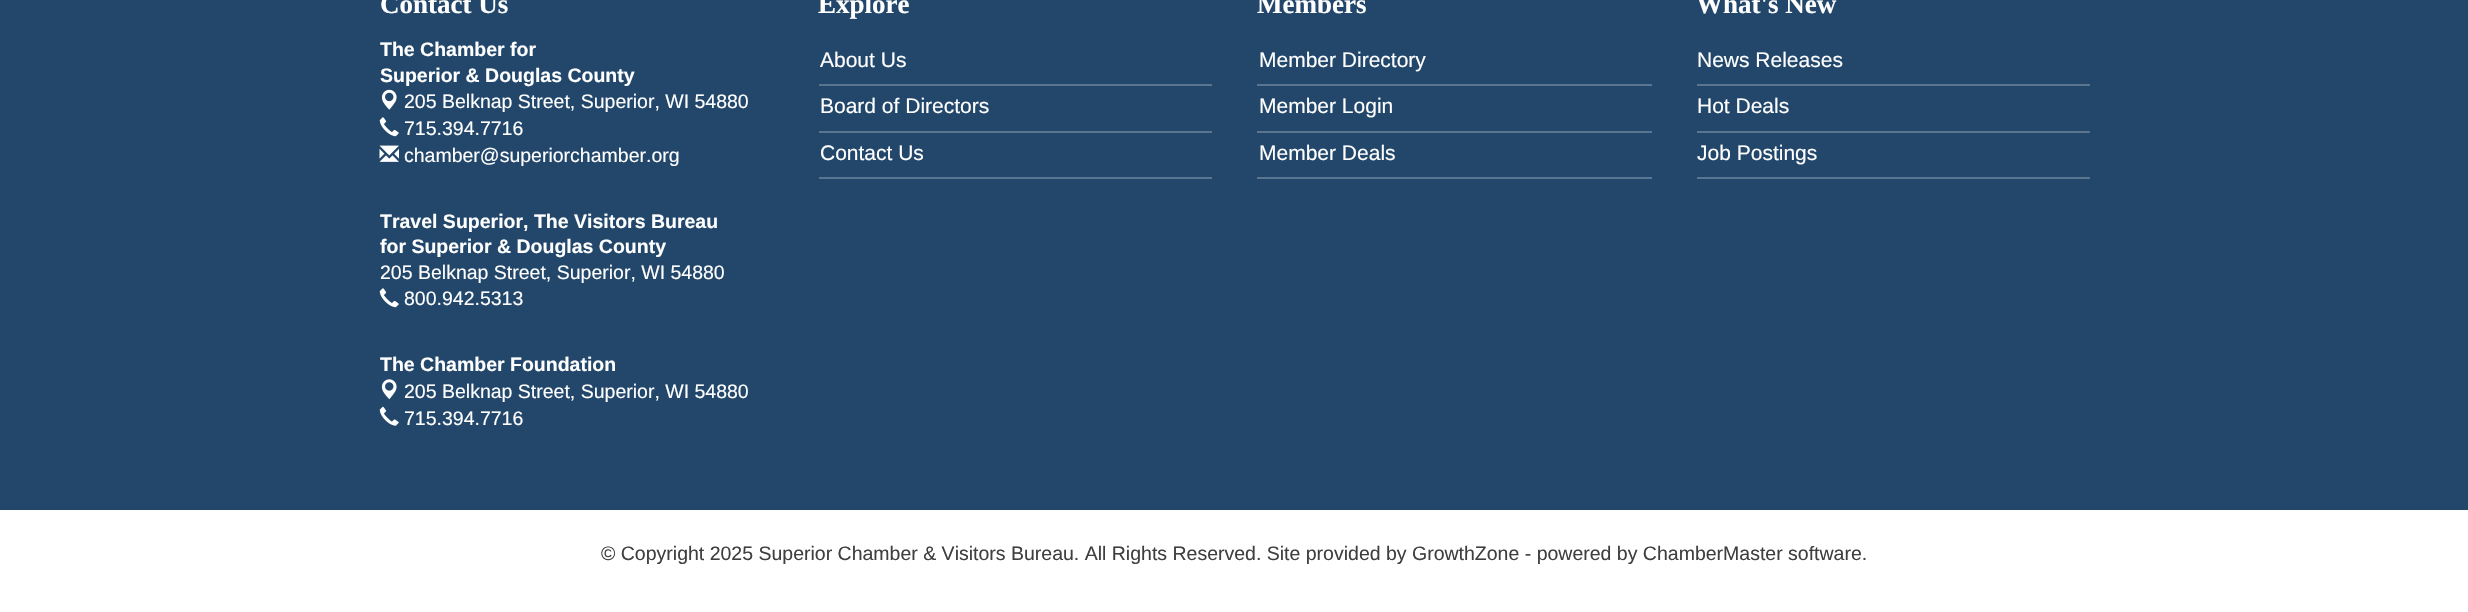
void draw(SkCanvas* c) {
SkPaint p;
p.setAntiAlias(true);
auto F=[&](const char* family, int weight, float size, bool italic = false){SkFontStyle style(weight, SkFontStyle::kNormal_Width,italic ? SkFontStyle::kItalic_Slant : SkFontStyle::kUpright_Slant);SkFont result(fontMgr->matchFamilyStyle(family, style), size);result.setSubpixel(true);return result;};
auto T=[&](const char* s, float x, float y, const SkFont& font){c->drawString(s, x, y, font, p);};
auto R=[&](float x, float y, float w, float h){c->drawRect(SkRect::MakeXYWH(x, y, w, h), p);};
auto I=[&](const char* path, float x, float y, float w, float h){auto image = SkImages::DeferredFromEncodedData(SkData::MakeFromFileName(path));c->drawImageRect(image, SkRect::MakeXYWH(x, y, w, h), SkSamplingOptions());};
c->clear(0xff22476b);
auto f1 = F("Liberation Serif",700,27);
p.setColor(0xffffffff);
T("Contact Us",380,13,f1);
auto f2 = F("Liberation Sans",700,19.5);
T("The Chamber for",380,56,f2);
T("Superior & Douglas County",380,82,f2);
I("1.png",381,89,16,21);
auto f3 = F("Liberation Sans",400,19.5);
T("205 Belknap Street, Superior, WI 54880",404,108,f3);
I("2.png",379,117,20,20);
T("715.394.7716",404,135,f3);
I("3.png",379,145,20,17);
T("chamber@superiorchamber.org",404,162,f3);
T("Travel Superior, The Visitors Bureau",380,228,f2);
T("for Superior & Douglas County",380,253,f2);
T("205 Belknap Street, Superior, WI 54880",380,279,f3);
I("2.png",379,288,20,20);
T("800.942.5313",404,305,f3);
T("The Chamber Foundation",380,371,f2);
I("4.png",381,379,16,21);
T("205 Belknap Street, Superior, WI 54880",404,398,f3);
I("5.png",379,406,20,20);
T("715.394.7716",404,425,f3);
T("Explore",818,13,f1);
p.setColor(0xff597590);
R(819,84,393,2);
auto f4 = F("Liberation Sans",400,21);
p.setColor(0xffffffff);
T("About Us",820,67,f4);
p.setColor(0xff597590);
R(819,131,393,2);
p.setColor(0xffffffff);
T("Board of Directors",820,113,f4);
p.setColor(0xff597590);
R(819,177,393,2);
p.setColor(0xffffffff);
T("Contact Us",820,160,f4);
T("Members",1257,13,f1);
p.setColor(0xff597590);
R(1257,84,395,2);
p.setColor(0xffffffff);
T("Member Directory",1259,67,f4);
p.setColor(0xff597590);
R(1257,131,395,2);
p.setColor(0xffffffff);
T("Member Login",1259,113,f4);
p.setColor(0xff597590);
R(1257,177,395,2);
p.setColor(0xffffffff);
T("Member Deals",1259,160,f4);
T("What's New",1696,13,f1);
p.setColor(0xff597590);
R(1697,84,393,2);
p.setColor(0xffffffff);
T("News Releases",1697,67,f4);
p.setColor(0xff597590);
R(1697,131,393,2);
p.setColor(0xffffffff);
T("Hot Deals",1697,113,f4);
p.setColor(0xff597590);
R(1697,177,393,2);
p.setColor(0xffffffff);
T("Job Postings",1697,160,f4);
R(0,510,2468,102);
p.setColor(0xff3f3f3f);
T("© Copyright 2025 Superior Chamber & Visitors Bureau. All Rights Reserved. Site provided by GrowthZone - powered by ChamberMaster software.",601,560,f3);
}
